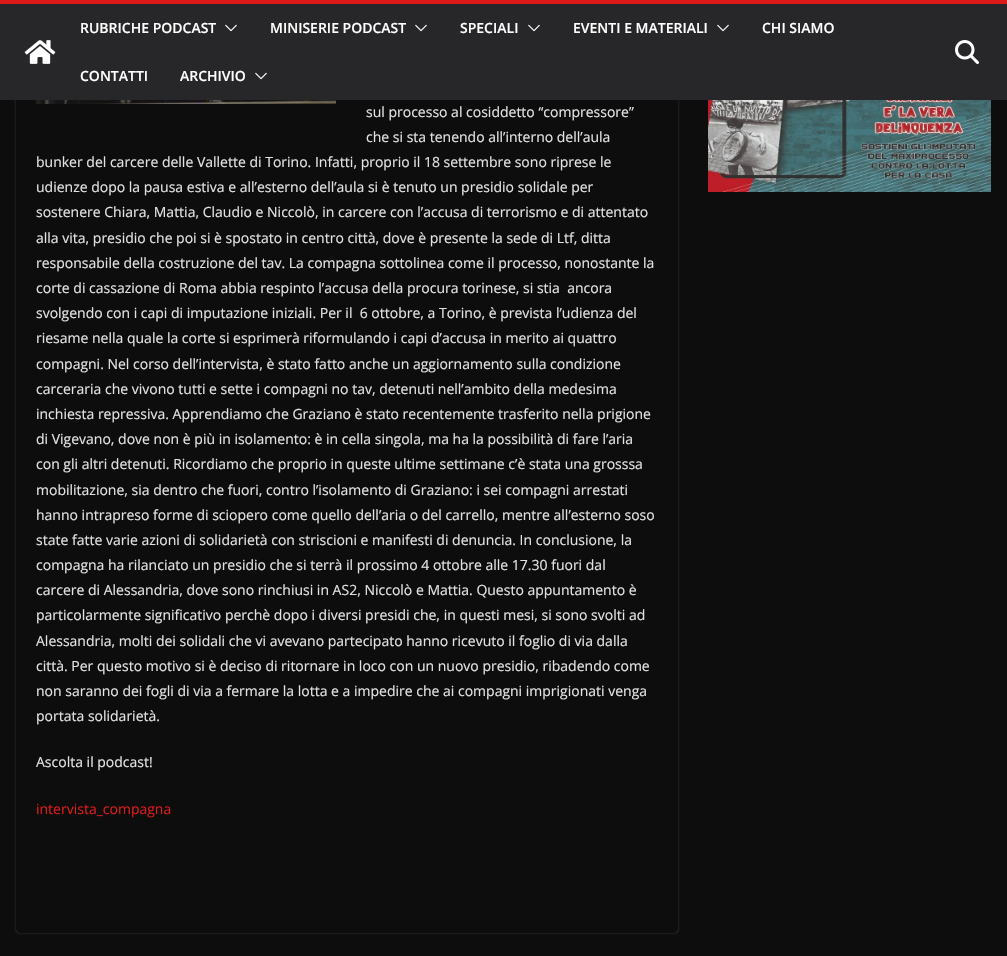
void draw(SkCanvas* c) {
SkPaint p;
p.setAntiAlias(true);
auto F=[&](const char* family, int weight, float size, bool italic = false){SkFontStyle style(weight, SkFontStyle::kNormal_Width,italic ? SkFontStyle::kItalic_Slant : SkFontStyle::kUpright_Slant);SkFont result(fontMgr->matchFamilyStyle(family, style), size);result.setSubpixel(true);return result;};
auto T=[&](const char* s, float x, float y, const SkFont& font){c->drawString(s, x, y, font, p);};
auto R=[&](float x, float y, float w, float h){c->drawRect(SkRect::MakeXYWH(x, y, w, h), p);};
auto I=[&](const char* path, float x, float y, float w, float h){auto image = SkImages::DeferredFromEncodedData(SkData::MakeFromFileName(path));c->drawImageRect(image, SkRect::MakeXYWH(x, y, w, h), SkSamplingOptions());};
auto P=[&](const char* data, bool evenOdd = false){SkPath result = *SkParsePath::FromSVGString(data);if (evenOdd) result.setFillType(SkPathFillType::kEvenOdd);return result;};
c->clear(0xff0d0d0d);
c->save();
c->clipPath(P("M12 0h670v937h-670zm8-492h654c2 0 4 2 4 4v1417c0 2-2 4-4 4h-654c-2 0-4-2-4-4v-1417c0-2 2-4 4-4z",true),true);
p.setColor(0x3dffffff);
p.setMaskFilter(SkMaskFilter::MakeBlur(kNormal_SkBlurStyle, 1));
c->drawRoundRect(SkRect::MakeXYWH(16,-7,662,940),4,4,p);
p.setMaskFilter(nullptr);
c->restore();
p.setColor(0xff27272a);
R(0,4,1007,96);
p.setColor(0xffdd1a1a);
R(0,0,1007,4);
I("1.png",24,40,32,24);
auto f1 = F("Open Sans",600,14);
p.setColor(0xffffffff);
T("RUBRICHE PODCAST",80,33,f1);
I("2.png",225,24,12,8);
T("MINISERIE PODCAST",270,33,f1);
I("2.png",415,24,12,8);
T("SPECIALI",460,33,f1);
I("2.png",528,24,12,8);
T("EVENTI E MATERIALI",573,33,f1);
I("2.png",717,24,12,8);
T("CHI SIAMO",762,33,f1);
T("CONTATTI",80,81,f1);
T("ARCHIVIO",180,81,f1);
I("2.png",255,72,12,8);
I("3.png",955,40,24,24);
I("4.png",36,100,300,4);
auto f2 = F("Open Sans",400,14);
p.setColor(0xffe3e2e2);
T("sul processo al cosiddetto “compressore”",366,117,f2);
T("che si sta tenendo all’interno dell’aula",366,142,f2);
T("bunker del carcere delle Vallette di Torino. Infatti, proprio il 18 settembre sono riprese le",36,167,f2);
T("udienze dopo la pausa estiva e all’esterno dell’aula si è tenuto un presidio solidale per",36,192,f2);
T("sostenere Chiara, Mattia, Claudio e Niccolò, in carcere con l’accusa di terrorismo e di attentato",36,217,f2);
T("alla vita, presidio che poi si è spostato in centro città, dove è presente la sede di Ltf, ditta",36,243,f2);
T("responsabile della costruzione del tav. La compagna sottolinea come il processo, nonostante la",36,268,f2);
T("corte di cassazione di Roma abbia respinto l’accusa della procura torinese, si stia  ancora",36,293,f2);
T("svolgendo con i capi di imputazione iniziali. Per il  6 ottobre, a Torino, è prevista l’udienza del",36,318,f2);
T("riesame nella quale la corte si esprimerà riformulando i capi d’accusa in merito ai quattro",36,343,f2);
T("compagni. Nel corso dell’intervista, è stato fatto anche un aggiornamento sulla condizione",36,369,f2);
T("carceraria che vivono tutti e sette i compagni no tav, detenuti nell’ambito della medesima",36,394,f2);
T("inchiesta repressiva. Apprendiamo che Graziano è stato recentemente trasferito nella prigione",36,419,f2);
T("di Vigevano, dove non è più in isolamento: è in cella singola, ma ha la possibilità di fare l’aria",36,444,f2);
T("con gli altri detenuti. Ricordiamo che proprio in queste ultime settimane c’è stata una grosssa",36,469,f2);
T("mobilitazione, sia dentro che fuori, contro l’isolamento di Graziano: i sei compagni arrestati",36,495,f2);
T("hanno intrapreso forme di sciopero come quello dell’aria o del carrello, mentre all’esterno soso",36,520,f2);
T("state fatte varie azioni di solidarietà con striscioni e manifesti di denuncia. In conclusione, la",36,545,f2);
T("compagna ha rilanciato un presidio che si terrà il prossimo 4 ottobre alle 17.30 fuori dal",36,570,f2);
T("carcere di Alessandria, dove sono rinchiusi in AS2, Niccolò e Mattia. Questo appuntamento è",36,595,f2);
T("particolarmente significativo perchè dopo i diversi presidi che, in questi mesi, si sono svolti ad",36,620,f2);
T("Alessandria, molti dei solidali che vi avevano partecipato hanno ricevuto il foglio di via dalla",36,646,f2);
T("città. Per questo motivo si è deciso di ritornare in loco con un nuovo presidio, ribadendo come",36,671,f2);
T("non saranno dei fogli di via a fermare la lotta e a impedire che ai compagni imprigionati venga",36,696,f2);
T("portata solidarietà.",36,721,f2);
T("Ascolta il podcast!",36,767,f2);
p.setColor(0xffdd1a1a);
T("intervista_compagna",36,814,f2);
I("5.png",708,100,283,92);
}
